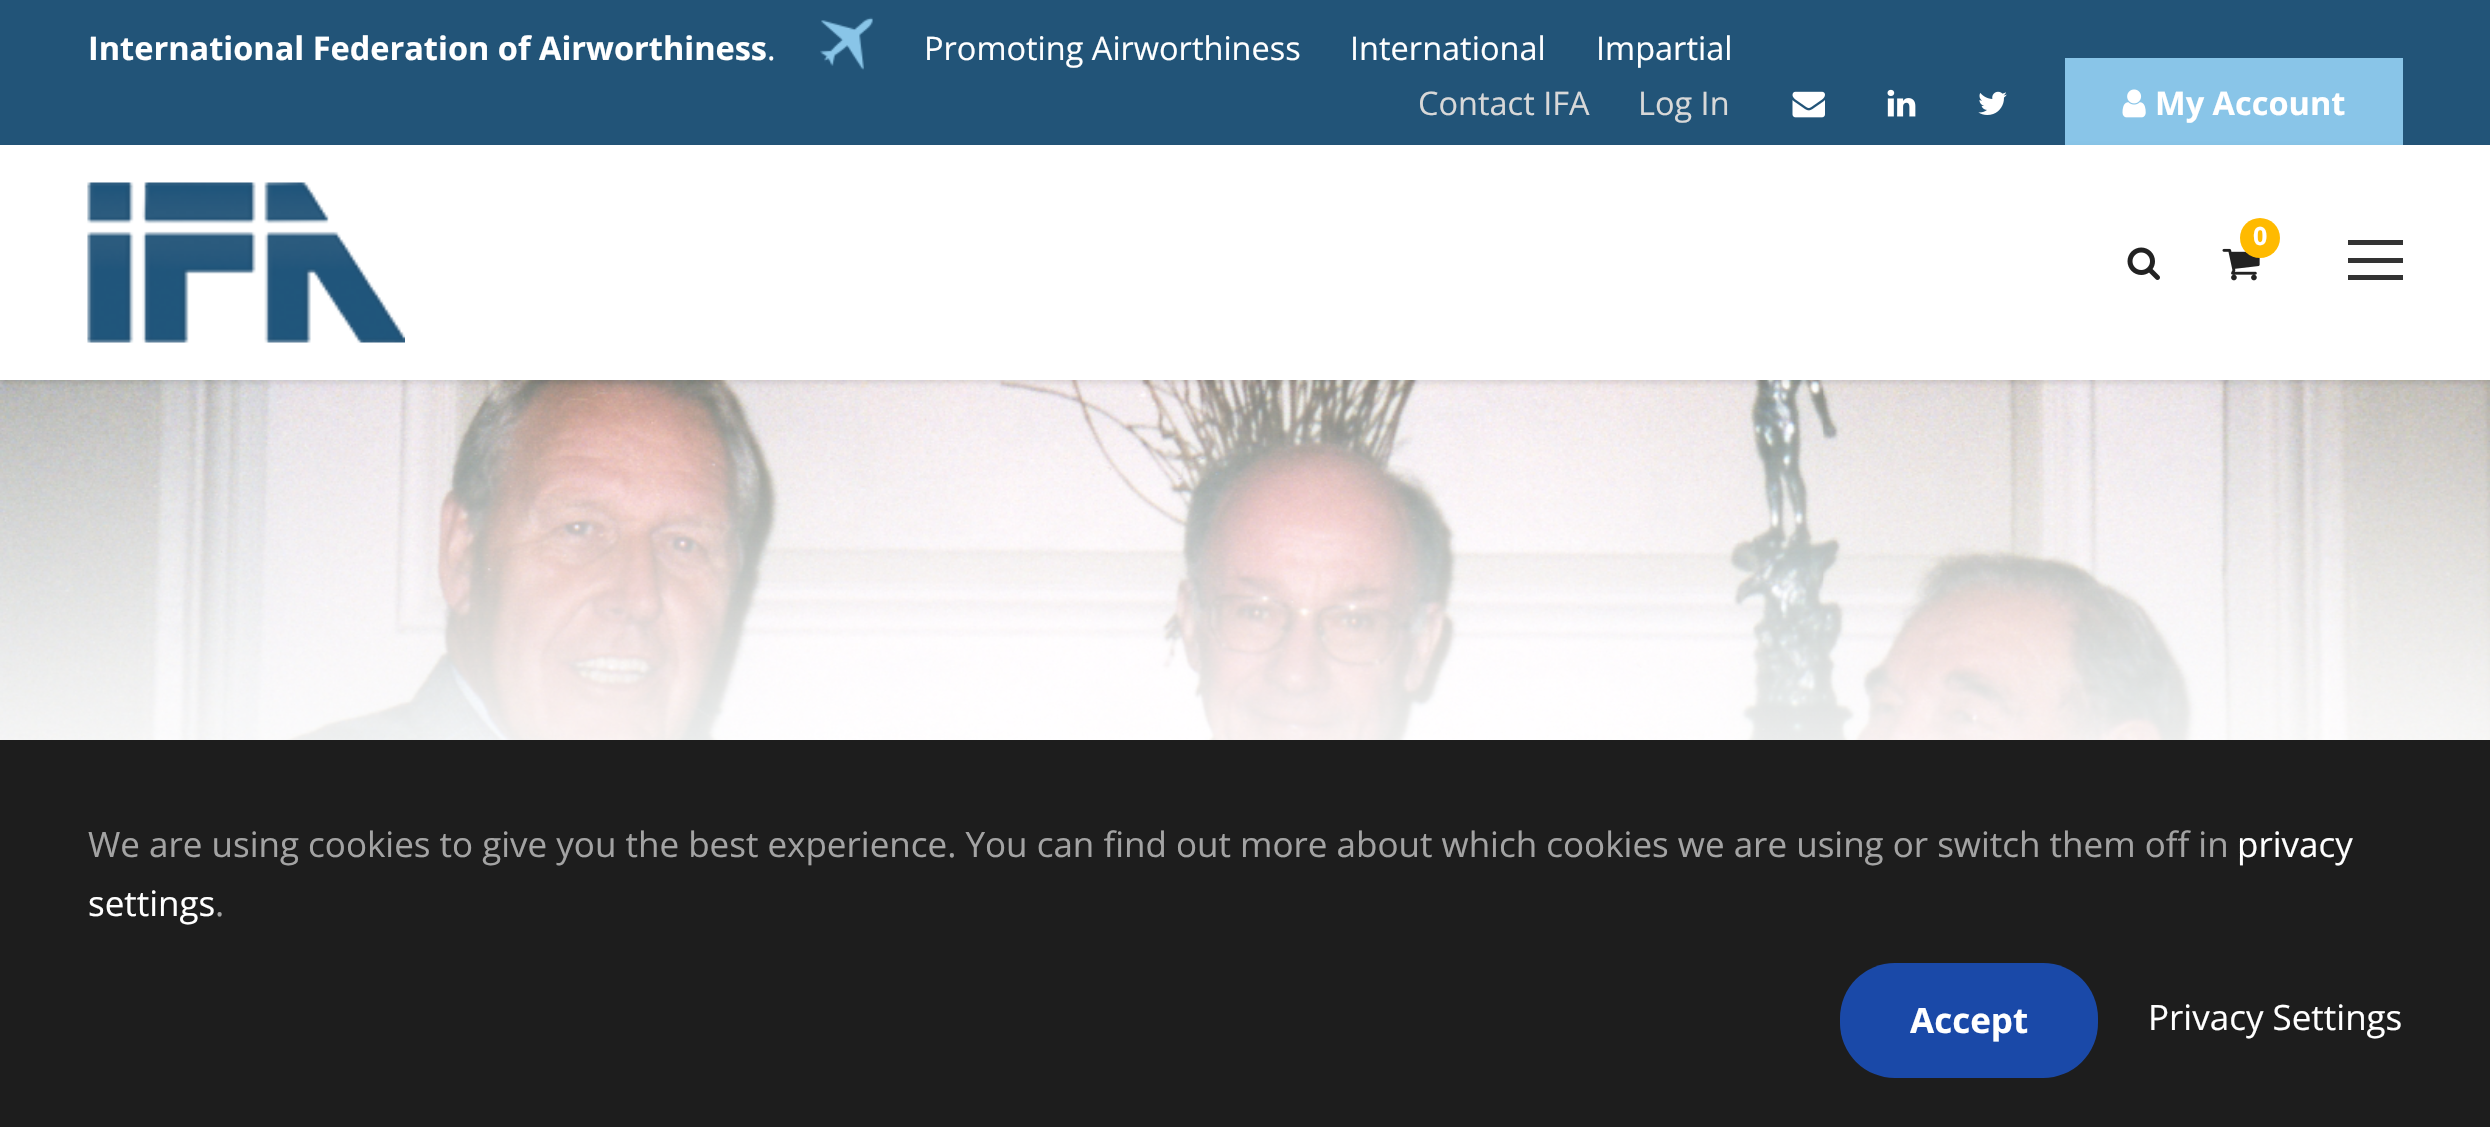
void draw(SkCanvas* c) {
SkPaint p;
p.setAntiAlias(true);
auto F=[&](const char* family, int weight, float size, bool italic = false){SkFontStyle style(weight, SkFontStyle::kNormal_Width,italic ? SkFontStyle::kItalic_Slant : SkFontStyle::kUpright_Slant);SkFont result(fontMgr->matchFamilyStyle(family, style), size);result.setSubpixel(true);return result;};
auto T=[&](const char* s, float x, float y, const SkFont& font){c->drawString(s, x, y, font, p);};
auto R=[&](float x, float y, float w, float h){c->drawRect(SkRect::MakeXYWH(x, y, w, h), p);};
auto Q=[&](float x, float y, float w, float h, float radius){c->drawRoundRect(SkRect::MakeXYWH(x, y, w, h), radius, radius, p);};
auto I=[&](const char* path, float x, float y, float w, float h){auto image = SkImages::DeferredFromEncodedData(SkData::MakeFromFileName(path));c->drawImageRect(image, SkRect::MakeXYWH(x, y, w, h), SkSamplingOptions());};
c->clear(0xff225478);
auto f1 = F("Open Sans",700,32.5);
p.setColor(0xffffffff);
T("International Federation of Airworthiness",88,60,f1);
auto f2 = F("Open Sans",400,32.5);
T(".",767,60,f2);
I("1.png",820,17,53,53);
T("Promoting Airworthiness",924,60,f2);
T("International",1350,60,f2);
T("Impartial",1596,60,f2);
p.setColor(0xffd8d8d8);
T("Contact IFA",1418,115,f2);
T("Log In",1638,115,f2);
I("2.png",1792,91,33,27);
I("3.png",1887,89,29,28);
I("4.png",1978,91,29,24);
p.setColor(0xff89c5e8);
R(2065,58,338,87);
I("5.png",2122,89,24,29);
p.setColor(0xffffffff);
T("My Account",2155,115,f1);
I("9.png",0,380,2490,360);
p.setColor(0x1a000000);
p.setMaskFilter(SkMaskFilter::MakeBlur(kNormal_SkBlurStyle, 2.5));
c->drawRect(SkRect::MakeXYWH(0,148,2490,235),p);
p.setMaskFilter(nullptr);
p.setColor(0xffffffff);
R(0,145,2490,235);
I("6.png",87,182,318,161);
I("7.png",2222,248,38,33);
p.setColor(0xffffba00);
c->drawCircle(2260,238,20,p);
auto f3 = F("Open Sans",700,25);
p.setColor(0xffffffff);
T("0",2253,245,f3);
I("8.png",2127,247,33,33);
p.setColor(0xff333333);
R(2348,240,55,5);
R(2348,258,55,5);
R(2348,275,55,5);
p.setColor(0xff1d1d1d);
R(0,740,2490,387);
auto f4 = F("Open Sans",400,35);
p.setColor(0xffa3a3a3);
T("We are using cookies to give you the best experience. You can find out more about which cookies we are using or switch them off in",88,857,f4);
p.setColor(0xffffffff);
T("privacy",2237,857,f4);
T("settings",88,916,f4);
p.setColor(0xffa3a3a3);
T(".",215,916,f4);
p.setColor(0xff1a49a8);
Q(1840,963,258,115,55);
auto f5 = F("Open Sans",700,35);
p.setColor(0xffffffff);
T("Accept",1910,1033,f5);
T("Privacy Settings",2148,1030,f4);
}
